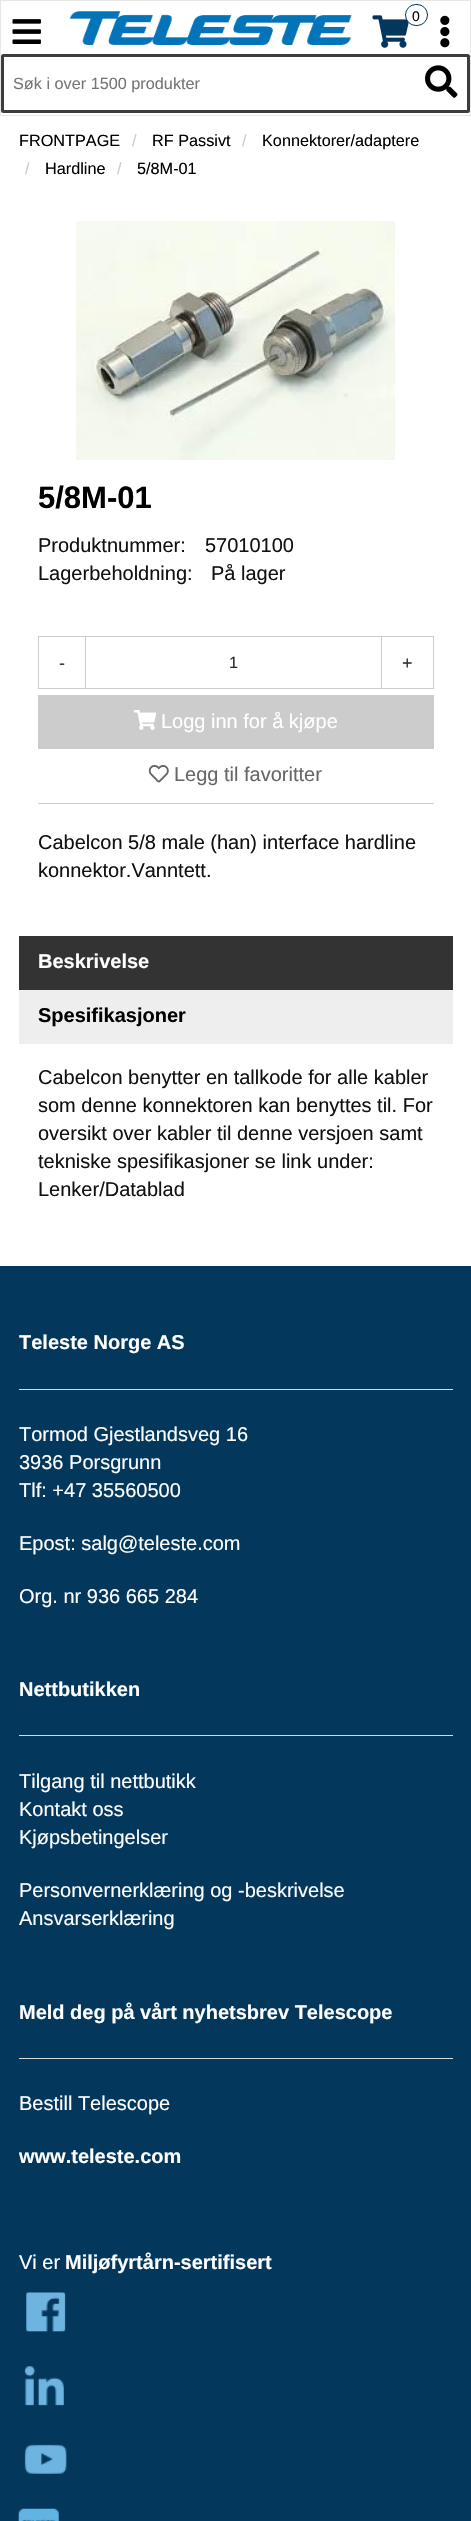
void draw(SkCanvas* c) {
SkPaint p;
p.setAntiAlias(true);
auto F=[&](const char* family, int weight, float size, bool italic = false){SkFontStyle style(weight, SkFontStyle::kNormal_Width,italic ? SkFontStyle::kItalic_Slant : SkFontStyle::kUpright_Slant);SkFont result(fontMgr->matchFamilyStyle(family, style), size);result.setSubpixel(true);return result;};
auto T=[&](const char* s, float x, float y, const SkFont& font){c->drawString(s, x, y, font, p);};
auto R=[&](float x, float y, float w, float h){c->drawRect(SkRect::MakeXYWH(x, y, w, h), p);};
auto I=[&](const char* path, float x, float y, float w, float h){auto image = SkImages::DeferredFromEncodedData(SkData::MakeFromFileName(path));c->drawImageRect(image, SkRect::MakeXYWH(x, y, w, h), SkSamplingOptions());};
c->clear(0xffffffff);
p.setStroke(true);
p.setStrokeWidth(1);
p.setColor(0xffe7e7e7);
c->drawRect(SkRect::MakeXYWH(.5,.5,470,115),p);
I("1.png",70,11,282,34);
I("2.png",372,15,37,33);
p.setStroke(false);
p.setColor(0xffffffff);
c->drawRoundRect(SkRect::MakeXYWH(405.5,4.5,22,21),10.5,10.5,p);
p.setStroke(true);
p.setColor(0xff03385c);
c->drawRoundRect(SkRect::MakeXYWH(405.5,4.5,22,21),10.5,10.5,p);
auto f1 = F("Liberation Sans",400,14);
p.setStroke(false);
p.setColor(0xff000000);
T("0",412,21,f1);
I("3.png",440,15,10,33);
I("4.png",12,19,29,25);
p.setStroke(true);
p.setStrokeWidth(3);
p.setColor(0xff3d3d3d);
c->drawRoundRect(SkRect::MakeXYWH(2.5,55.5,466,56),1,1,p);
auto f2 = F("Liberation Sans",400,16.25);
p.setStroke(false);
p.setColor(0xff757575);
T("Søk i over 1500 produkter",13,89,f2);
I("5.png",425,65,33,33);
p.setColor(0xff000000);
T("FRONTPAGE",19,146,f2);
p.setColor(0xffcccccc);
T("/",132,146,f2);
p.setColor(0xff000000);
T("RF Passivt",152,146,f2);
p.setColor(0xffcccccc);
T("/",242,146,f2);
p.setColor(0xff000000);
T("Konnektorer/adaptere",262,146,f2);
p.setColor(0xffcccccc);
T("/",25,174,f2);
p.setColor(0xff000000);
T("Hardline",45,174,f2);
p.setColor(0xffcccccc);
T("/",117,174,f2);
p.setColor(0xff000000);
T("5/8M-01",137,174,f2);
I("6.png",76,221,319,239);
auto f3 = F("Liberation Sans",700,31);
T("5/8M-01",38,508,f3);
auto f4 = F("Liberation Sans",400,20);
p.setColor(0xff111111);
T("Produktnummer:",38,552,f4);
T("57010100",205,552,f4);
T("Lagerbeholdning:",38,580,f4);
T("På lager",211,580,f4);
p.setStroke(true);
p.setStrokeWidth(1);
p.setColor(0xffcccccc);
c->drawRect(SkRect::MakeXYWH(38.5,636.5,47,52),p);
auto f5 = F("Liberation Sans",400,18);
p.setStroke(false);
p.setColor(0xff333333);
T("-",59,669,f5);
p.setStroke(true);
p.setColor(0xffcccccc);
c->drawRect(SkRect::MakeXYWH(85.5,636.5,297,52),p);
p.setStroke(false);
p.setColor(0xff292929);
T("1",229,668,f2);
p.setColor(0xffffffff);
R(382,637,1,51);
p.setStroke(true);
p.setColor(0xffcccccc);
c->drawRect(SkRect::MakeXYWH(381.5,636.5,52,52),p);
p.setStroke(false);
p.setColor(0xff333333);
T("+",402,669,f5);
p.setColor(0xffcccccc);
R(38,695,396,54);
I("7.png",133,710,24,20);
p.setColor(0xffffffff);
T("Logg inn for å kjøpe",161,728,f4);
p.setColor(0xffcccccc);
R(38,803,396,1);
I("8.png",148,765,21,18);
p.setColor(0xff666666);
T("Legg til favoritter",174,781,f4);
p.setColor(0xff111111);
T("Cabelcon 5/8 male (han) interface hardline",38,849,f4);
T("konnektor.Vanntett.",38,877,f4);
p.setColor(0xff333333);
R(19,936,434,54);
auto f6 = F("Liberation Sans",700,20);
p.setColor(0xffffffff);
T("Beskrivelse",38,968,f6);
p.setColor(0xffeeeeee);
R(19,990,434,54);
p.setColor(0xff000000);
T("Spesifikasjoner",38,1022,f6);
p.setColor(0xff111111);
T("Cabelcon benytter en tallkode for alle kabler",38,1084,f4);
T("som denne konnektoren kan benyttes til. For",38,1112,f4);
T("oversikt over kabler til denne versjoen samt",38,1140,f4);
T("tekniske spesifikasjoner se link under:",38,1168,f4);
T("Lenker/Datablad",38,1196,f4);
p.setColor(0xff03385c);
R(0,1266,471,1255);
p.setColor(0xffffffff);
T("Teleste Norge AS",19,1349,f6);
p.setColor(0xffdadada);
R(19,1389,434,1);
p.setColor(0xffffffff);
T("Tormod Gjestlandsveg 16",19,1441,f4);
T("3936 Porsgrunn",19,1469,f4);
T("Tlf: +47 35560500",19,1497,f4);
T("Epost: salg@teleste.com",19,1550,f4);
T("Org. nr 936 665 284",19,1603,f4);
T("Nettbutikken",19,1696,f6);
p.setColor(0xffdadada);
R(19,1735,434,1);
p.setColor(0xffffffff);
T("Tilgang til nettbutikk",19,1788,f4);
T("Kontakt oss",19,1816,f4);
T("Kjøpsbetingelser",19,1844,f4);
T("Personvernerklæring og -beskrivelse",19,1897,f4);
T("Ansvarserklæring",19,1925,f4);
T("Meld deg på vårt nyhetsbrev Telescope",19,2019,f6);
p.setColor(0xffdadada);
R(19,2058,434,1);
p.setColor(0xffffffff);
T("Bestill Telescope",19,2110,f4);
T("www.teleste.com",19,2163,f6);
T("Vi er",19,2269,f4);
T("Miljøfyrtårn-sertifisert",65,2269,f6);
I("9.png",26,2292,40,40);
I("10.png",24,2366,40,40);
I("11.png",24,2444,43,30);
I("12.png",18,2508,41,13);
}
